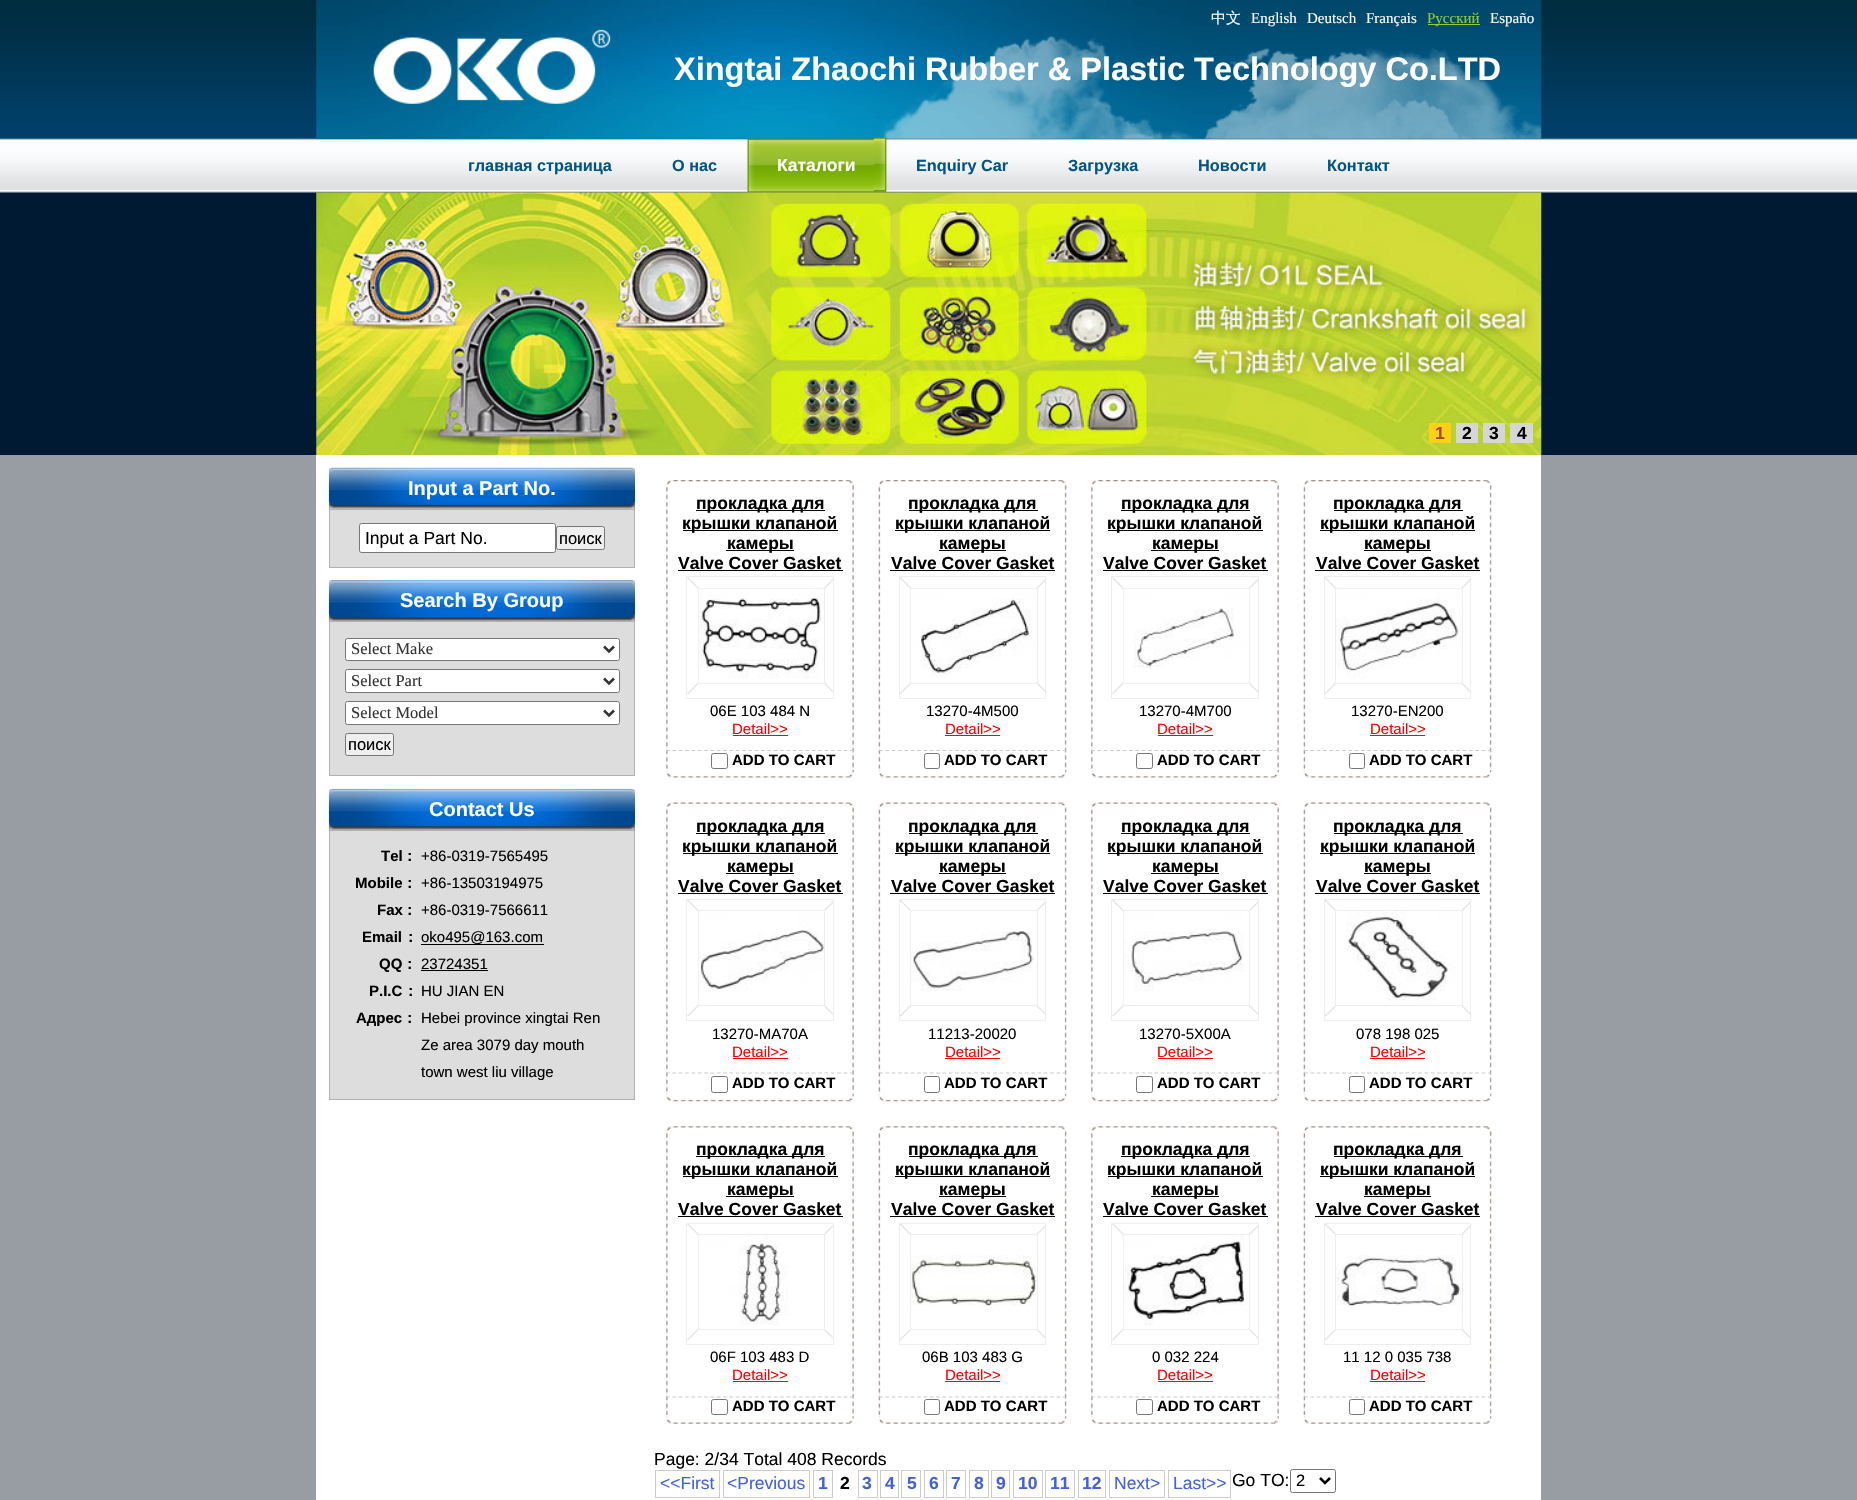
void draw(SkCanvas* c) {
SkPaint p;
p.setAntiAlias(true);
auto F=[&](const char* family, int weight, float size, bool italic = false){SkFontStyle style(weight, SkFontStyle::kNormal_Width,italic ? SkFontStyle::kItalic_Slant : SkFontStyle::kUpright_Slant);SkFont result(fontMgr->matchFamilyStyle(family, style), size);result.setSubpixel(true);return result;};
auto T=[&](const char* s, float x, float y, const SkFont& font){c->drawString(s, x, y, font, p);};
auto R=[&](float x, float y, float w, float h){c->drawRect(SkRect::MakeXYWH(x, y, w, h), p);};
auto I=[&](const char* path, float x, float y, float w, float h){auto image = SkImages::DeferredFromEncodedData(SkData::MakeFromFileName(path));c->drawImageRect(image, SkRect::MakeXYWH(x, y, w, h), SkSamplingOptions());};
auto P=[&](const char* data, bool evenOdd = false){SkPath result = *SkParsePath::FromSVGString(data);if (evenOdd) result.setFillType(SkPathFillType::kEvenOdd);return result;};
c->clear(0xff989da3);
I("1.png",0,0,1857,455);
I("2.png",316,0,1226,139);
auto f1 = F("WenQuanYi Zen Hei",500,15);
p.setColor(0xffffffff);
T("中文",1211,23,f1);
auto f2 = F("Liberation Serif",400,15);
T("English",1251,23,f2);
T("Deutsch",1307,23,f2);
T("Français",1366,23,f2);
p.setColor(0xff99cc33);
R(1428,24,52,1);
T("Русский",1427,23,f2);
p.setColor(0xffffffff);
T("Españo",1490,23,f2);
I("3.png",373,29,238,75);
auto f3 = F("Liberation Sans",700,32.5);
T("Xingtai Zhaochi Rubber & Plastic Technology Co.LTD",674,80,f3);
I("5.png",747,138,140,55);
I("4.png",873,137,14,55);
auto f4 = F("Liberation Sans",700,16.25);
p.setColor(0xff035487);
T("главная страница",468,171,f4);
T("О нас",672,171,f4);
auto f5 = F("Liberation Sans",700,17.5);
p.setColor(0xffffffff);
T("Каталоги",777,171,f5);
p.setColor(0xff035487);
T("Enquiry Car",916,171,f4);
T("Загрузка",1068,171,f4);
T("Новости",1198,171,f4);
T("Контакт",1327,171,f4);
I("6.png",316,192,1226,263);
p.setColor(0xffffd116);
R(1429,423,22,20);
p.setColor(0xffa8471c);
T("1",1435,439,f5);
p.setColor(0xffd7d6d7);
R(1456,423,22,20);
p.setColor(0xff000000);
T("2",1462,439,f5);
p.setColor(0xffd7d6d7);
R(1483,423,22,20);
p.setColor(0xff000000);
T("3",1489,439,f5);
p.setColor(0xffd7d6d7);
R(1510,423,23,20);
p.setColor(0xff000000);
T("4",1517,439,f5);
p.setColor(0xffffffff);
R(316,455,1225,1045);
p.setColor(0xffdddddd);
R(329,508,306,59);
I("7.png",328,467,307,42);
auto f6 = F("Liberation Sans",700,20);
p.setColor(0xffffffff);
T("Input a Part No.",408,495,f6);
p.setStroke(true);
p.setStrokeWidth(1);
p.setColor(0xffb1b1b1);
c->drawRect(SkRect::MakeXYWH(329.5,509.5,305,58),p);
p.setStroke(false);
p.setColor(0xffffffff);
c->drawRoundRect(SkRect::MakeXYWH(359.5,523.5,196,29),2,2,p);
p.setStroke(true);
p.setColor(0xff767676);
c->drawRoundRect(SkRect::MakeXYWH(359.5,523.5,196,29),2,2,p);
auto f7 = F("Liberation Sans",400,17.5);
p.setStroke(false);
p.setColor(0xff000000);
T("Input a Part No.",365,544,f7);
p.setColor(0xffefefef);
c->drawRoundRect(SkRect::MakeXYWH(556.5,526.5,48,23),2,2,p);
p.setStroke(true);
p.setColor(0xff767676);
c->drawRoundRect(SkRect::MakeXYWH(556.5,526.5,48,23),2,2,p);
auto f8 = F("Liberation Sans",400,16.5);
p.setStroke(false);
p.setColor(0xff000000);
T("поиск",559,544,f8);
I("8.png",328,580,307,41);
p.setColor(0xffffffff);
T("Search By Group",400,607,f6);
p.setColor(0xffdddddd);
c->drawRect(SkRect::MakeXYWH(329.5,621.5,305,154),p);
p.setStroke(true);
p.setColor(0xffb1b1b1);
c->drawRect(SkRect::MakeXYWH(329.5,621.5,305,154),p);
p.setStroke(false);
p.setColor(0xffffffff);
c->drawRoundRect(SkRect::MakeXYWH(345.5,638.5,274,22),2,2,p);
p.setStroke(true);
p.setColor(0xff767676);
c->drawRoundRect(SkRect::MakeXYWH(345.5,638.5,274,22),2,2,p);
p.setStrokeWidth(2.5);
p.setColor(0xff333333);
c->drawPath(P("M604 646.5l5 5l5-5"),p);
auto f9 = F("Liberation Serif",400,16.5);
p.setStroke(false);
T("Select Make",351,654,f9);
p.setColor(0xffffffff);
c->drawRoundRect(SkRect::MakeXYWH(345.5,669.5,274,23),2,2,p);
p.setStroke(true);
p.setStrokeWidth(1);
p.setColor(0xff767676);
c->drawRoundRect(SkRect::MakeXYWH(345.5,669.5,274,23),2,2,p);
p.setStrokeWidth(2.5);
p.setColor(0xff333333);
c->drawPath(P("M604 678.5l5 5l5-5"),p);
p.setStroke(false);
T("Select Part",351,686,f9);
p.setColor(0xffffffff);
c->drawRoundRect(SkRect::MakeXYWH(345.5,701.5,274,23),2,2,p);
p.setStroke(true);
p.setStrokeWidth(1);
p.setColor(0xff767676);
c->drawRoundRect(SkRect::MakeXYWH(345.5,701.5,274,23),2,2,p);
p.setStrokeWidth(2.5);
p.setColor(0xff333333);
c->drawPath(P("M604 710.5l5 5l5-5"),p);
p.setStroke(false);
T("Select Model",351,718,f9);
p.setColor(0xffefefef);
c->drawRoundRect(SkRect::MakeXYWH(345.5,733.5,48,22),2,2,p);
p.setStroke(true);
p.setStrokeWidth(1);
p.setColor(0xff767676);
c->drawRoundRect(SkRect::MakeXYWH(345.5,733.5,48,22),2,2,p);
p.setStroke(false);
p.setColor(0xff000000);
T("поиск",348,750,f8);
I("9.png",328,788,307,42);
p.setColor(0xffffffff);
T("Contact Us",429,816,f6);
p.setColor(0xffdddddd);
c->drawRect(SkRect::MakeXYWH(329.5,830.5,305,269),p);
p.setStroke(true);
p.setColor(0xffb1b1b1);
c->drawRect(SkRect::MakeXYWH(329.5,830.5,305,269),p);
auto f10 = F("Liberation Sans",700,15);
p.setStroke(false);
p.setColor(0xff000000);
T("Tel",381,861,f10);
auto f11 = F("WenQuanYi Zen Hei",700,15);
T("：",402,861,f11);
auto f12 = F("Liberation Sans",400,15);
T("+86-0319-7565495",421,861,f12);
T("Mobile",355,888,f10);
T("：",402,888,f11);
T("+86-13503194975",421,888,f12);
T("Fax",377,915,f10);
T("：",402,915,f11);
T("+86-0319-7566611",421,915,f12);
T("Email",362,942,f10);
T("：",403,942,f11);
R(421,944,123,1);
T("oko495@163.com",421,942,f12);
T("QQ",379,969,f10);
T("：",402,969,f11);
T("23724351",421,969,f12);
R(421,970,67,1);
T("P.I.C",369,996,f10);
T("：",403,996,f11);
T("HU JIAN EN",421,996,f12);
T("Адрес",356,1023,f10);
T("：",402,1023,f11);
T("Hebei province xingtai Ren",421,1023,f12);
T("Ze area 3079 day mouth",421,1050,f12);
T("town west liu village",421,1077,f12);
I("10.png",666,770,188,8);
I("11.png",666,480,188,8);
I("12.png",666,486,188,283);
R(696,510,129,1);
T("прокладка для",696,509,f5);
R(683,530,155,1);
T("крышки клапаной",682,529,f5);
R(726,550,68,1);
T("камеры",727,549,f5);
T("Valve Cover Gasket",678,569,f5);
R(678,570,165,1);
I("13.png",687,577,146,117);
p.setStroke(true);
p.setColor(0xffeeeeee);
c->drawRect(SkRect::MakeXYWH(686.5,576.5,147,122),p);
c->drawRect(SkRect::MakeXYWH(698.5,588.5,126,95),p);
I("14.png",698,588,126,94);
p.setStroke(false);
p.setColor(0xff000000);
T("06E 103 484 N",710,716,f12);
p.setColor(0xffff0000);
T("Detail>>",732,734,f12);
R(733,735,55,1);
p.setStroke(true);
p.setStrokeWidth(1.2);
p.setColor(0xffcccccc);
p.setPathEffect(SkDashPathEffect::Make({{3.75f,2.59f}}, 0));
c->drawPath(P("M666 750.5h188"),p);
p.setPathEffect(nullptr);
p.setStrokeWidth(1);
p.setColor(0xff767676);
c->drawRoundRect(SkRect::MakeXYWH(711.5,753.5,16,15),2,2,p);
p.setStroke(false);
p.setColor(0xff000000);
T("ADD TO CART",732,765,f10);
I("15.png",878,770,189,8);
I("16.png",878,480,189,8);
I("17.png",878,486,189,283);
R(909,510,129,1);
T("прокладка для",908,509,f5);
R(895,530,155,1);
T("крышки клапаной",895,529,f5);
R(939,550,67,1);
T("камеры",939,549,f5);
T("Valve Cover Gasket",891,569,f5);
R(890,570,165,1);
I("18.png",900,577,147,117);
p.setStroke(true);
p.setColor(0xffeeeeee);
c->drawRect(SkRect::MakeXYWH(899.5,576.5,146,122),p);
c->drawRect(SkRect::MakeXYWH(910.5,588.5,127,95),p);
I("19.png",912,588,124,91);
p.setStroke(false);
p.setColor(0xff000000);
T("13270-4M500",926,716,f12);
p.setColor(0xffff0000);
T("Detail>>",945,734,f12);
R(945,735,55,1);
p.setStroke(true);
p.setStrokeWidth(1.2);
p.setColor(0xffcccccc);
p.setPathEffect(SkDashPathEffect::Make({{3.75f,2.59f}}, 0));
c->drawPath(P("M879 750.5h187"),p);
p.setPathEffect(nullptr);
p.setStrokeWidth(1);
p.setColor(0xff767676);
c->drawRoundRect(SkRect::MakeXYWH(924.5,753.5,15,15),2,2,p);
p.setStroke(false);
p.setColor(0xff000000);
T("ADD TO CART",944,765,f10);
I("20.png",1091,770,188,8);
I("21.png",1091,480,188,8);
I("22.png",1091,486,188,283);
R(1121,510,129,1);
T("прокладка для",1121,509,f5);
R(1108,530,155,1);
T("крышки клапаной",1107,529,f5);
R(1151,550,68,1);
T("камеры",1152,549,f5);
T("Valve Cover Gasket",1103,569,f5);
R(1103,570,165,1);
I("23.png",1112,577,146,117);
p.setStroke(true);
p.setColor(0xffeeeeee);
c->drawRect(SkRect::MakeXYWH(1111.5,576.5,147,122),p);
c->drawRect(SkRect::MakeXYWH(1123.5,588.5,126,95),p);
I("24.png",1123,588,125,94);
p.setStroke(false);
p.setColor(0xff000000);
T("13270-4M700",1139,716,f12);
p.setColor(0xffff0000);
T("Detail>>",1157,734,f12);
R(1158,735,55,1);
p.setStroke(true);
p.setStrokeWidth(1.2);
p.setColor(0xffcccccc);
p.setPathEffect(SkDashPathEffect::Make({{3.75f,2.59f}}, 0));
c->drawPath(P("M1091 750.5h188"),p);
p.setPathEffect(nullptr);
p.setStrokeWidth(1);
p.setColor(0xff767676);
c->drawRoundRect(SkRect::MakeXYWH(1136.5,753.5,16,15),2,2,p);
p.setStroke(false);
p.setColor(0xff000000);
T("ADD TO CART",1157,765,f10);
I("25.png",1303,770,189,8);
I("26.png",1303,480,189,8);
I("27.png",1303,486,189,283);
R(1334,510,129,1);
T("прокладка для",1333,509,f5);
R(1320,530,155,1);
T("крышки клапаной",1320,529,f5);
R(1364,550,67,1);
T("камеры",1364,549,f5);
T("Valve Cover Gasket",1316,569,f5);
R(1315,570,165,1);
I("18.png",1325,577,147,117);
p.setStroke(true);
p.setColor(0xffeeeeee);
c->drawRect(SkRect::MakeXYWH(1324.5,576.5,146,122),p);
c->drawRect(SkRect::MakeXYWH(1335.5,588.5,127,95),p);
I("28.png",1336,588,125,91);
p.setStroke(false);
p.setColor(0xff000000);
T("13270-EN200",1351,716,f12);
p.setColor(0xffff0000);
T("Detail>>",1370,734,f12);
R(1370,735,55,1);
p.setStroke(true);
p.setStrokeWidth(1.2);
p.setColor(0xffcccccc);
p.setPathEffect(SkDashPathEffect::Make({{3.75f,2.59f}}, 0));
c->drawPath(P("M1304 750.5h187"),p);
p.setPathEffect(nullptr);
p.setStrokeWidth(1);
p.setColor(0xff767676);
c->drawRoundRect(SkRect::MakeXYWH(1349.5,753.5,15,15),2,2,p);
p.setStroke(false);
p.setColor(0xff000000);
T("ADD TO CART",1369,765,f10);
I("29.png",666,1093,188,9);
I("30.png",666,802,188,8);
I("31.png",666,808,188,285);
R(696,833,129,1);
T("прокладка для",696,832,f5);
R(683,853,155,1);
T("крышки клапаной",682,852,f5);
R(726,873,68,1);
T("камеры",727,872,f5);
T("Valve Cover Gasket",678,892,f5);
R(678,893,165,1);
I("32.png",687,900,146,117);
p.setStroke(true);
p.setColor(0xffeeeeee);
c->drawRect(SkRect::MakeXYWH(686.5,899.5,147,121),p);
c->drawRect(SkRect::MakeXYWH(698.5,910.5,126,95),p);
I("33.png",698,912,126,93);
p.setStroke(false);
p.setColor(0xff000000);
T("13270-MA70A",712,1039,f12);
p.setColor(0xffff0000);
T("Detail>>",732,1057,f12);
R(733,1058,55,1);
p.setStroke(true);
p.setStrokeWidth(1.2);
p.setColor(0xffcccccc);
p.setPathEffect(SkDashPathEffect::Make({{3.75f,2.59f}}, 0));
c->drawPath(P("M666 1073h188"),p);
p.setPathEffect(nullptr);
p.setStrokeWidth(1);
p.setColor(0xff767676);
c->drawRoundRect(SkRect::MakeXYWH(711.5,1076.5,16,16),2,2,p);
p.setStroke(false);
p.setColor(0xff000000);
T("ADD TO CART",732,1088,f10);
I("34.png",878,1093,189,9);
I("35.png",878,802,189,8);
I("36.png",878,808,189,285);
R(909,833,129,1);
T("прокладка для",908,832,f5);
R(895,853,155,1);
T("крышки клапаной",895,852,f5);
R(939,873,67,1);
T("камеры",939,872,f5);
T("Valve Cover Gasket",891,892,f5);
R(890,893,165,1);
I("37.png",900,900,147,117);
p.setStroke(true);
p.setColor(0xffeeeeee);
c->drawRect(SkRect::MakeXYWH(899.5,899.5,146,121),p);
c->drawRect(SkRect::MakeXYWH(910.5,910.5,127,95),p);
I("38.png",911,931,123,60);
p.setStroke(false);
p.setColor(0xff000000);
T("11213-20020",928,1039,f12);
p.setColor(0xffff0000);
T("Detail>>",945,1057,f12);
R(945,1058,55,1);
p.setStroke(true);
p.setStrokeWidth(1.2);
p.setColor(0xffcccccc);
p.setPathEffect(SkDashPathEffect::Make({{3.75f,2.59f}}, 0));
c->drawPath(P("M879 1073h187"),p);
p.setPathEffect(nullptr);
p.setStrokeWidth(1);
p.setColor(0xff767676);
c->drawRoundRect(SkRect::MakeXYWH(924.5,1076.5,15,16),2,2,p);
p.setStroke(false);
p.setColor(0xff000000);
T("ADD TO CART",944,1088,f10);
I("39.png",1091,1093,188,9);
I("40.png",1091,802,188,8);
I("41.png",1091,808,188,285);
R(1121,833,129,1);
T("прокладка для",1121,832,f5);
R(1108,853,155,1);
T("крышки клапаной",1107,852,f5);
R(1151,873,68,1);
T("камеры",1152,872,f5);
T("Valve Cover Gasket",1103,892,f5);
R(1103,893,165,1);
I("42.png",1112,900,146,117);
p.setStroke(true);
p.setColor(0xffeeeeee);
c->drawRect(SkRect::MakeXYWH(1111.5,899.5,147,121),p);
c->drawRect(SkRect::MakeXYWH(1123.5,910.5,126,95),p);
I("43.png",1123,912,121,93);
p.setStroke(false);
p.setColor(0xff000000);
T("13270-5X00A",1139,1039,f12);
p.setColor(0xffff0000);
T("Detail>>",1157,1057,f12);
R(1158,1058,55,1);
p.setStroke(true);
p.setStrokeWidth(1.2);
p.setColor(0xffcccccc);
p.setPathEffect(SkDashPathEffect::Make({{3.75f,2.59f}}, 0));
c->drawPath(P("M1091 1073h188"),p);
p.setPathEffect(nullptr);
p.setStrokeWidth(1);
p.setColor(0xff767676);
c->drawRoundRect(SkRect::MakeXYWH(1136.5,1076.5,16,16),2,2,p);
p.setStroke(false);
p.setColor(0xff000000);
T("ADD TO CART",1157,1088,f10);
I("44.png",1303,1093,189,9);
I("45.png",1303,802,189,8);
I("46.png",1303,808,189,285);
R(1334,833,129,1);
T("прокладка для",1333,832,f5);
R(1320,853,155,1);
T("крышки клапаной",1320,852,f5);
R(1364,873,67,1);
T("камеры",1364,872,f5);
T("Valve Cover Gasket",1316,892,f5);
R(1315,893,165,1);
I("37.png",1325,900,147,117);
p.setStroke(true);
p.setColor(0xffeeeeee);
c->drawRect(SkRect::MakeXYWH(1324.5,899.5,146,121),p);
c->drawRect(SkRect::MakeXYWH(1335.5,910.5,127,95),p);
I("47.png",1346,911,110,90);
p.setStroke(false);
p.setColor(0xff000000);
T("078 198 025",1356,1039,f12);
p.setColor(0xffff0000);
T("Detail>>",1370,1057,f12);
R(1370,1058,55,1);
p.setStroke(true);
p.setStrokeWidth(1.2);
p.setColor(0xffcccccc);
p.setPathEffect(SkDashPathEffect::Make({{3.75f,2.59f}}, 0));
c->drawPath(P("M1304 1073h187"),p);
p.setPathEffect(nullptr);
p.setStrokeWidth(1);
p.setColor(0xff767676);
c->drawRoundRect(SkRect::MakeXYWH(1349.5,1076.5,15,16),2,2,p);
p.setStroke(false);
p.setColor(0xff000000);
T("ADD TO CART",1369,1088,f10);
I("48.png",666,1416,188,8);
I("49.png",666,1126,188,8);
I("50.png",666,1132,188,283);
R(696,1156,129,1);
T("прокладка для",696,1155,f5);
R(683,1176,155,1);
T("крышки клапаной",682,1175,f5);
R(726,1196,68,1);
T("камеры",727,1195,f5);
T("Valve Cover Gasket",678,1215,f5);
R(678,1216,165,1);
I("51.png",687,1224,146,116);
p.setStroke(true);
p.setColor(0xffeeeeee);
c->drawRect(SkRect::MakeXYWH(686.5,1223.5,147,121),p);
c->drawRect(SkRect::MakeXYWH(698.5,1234.5,126,95),p);
I("52.png",698,1235,91,93);
p.setStroke(false);
p.setColor(0xff000000);
T("06F 103 483 D",710,1362,f12);
p.setColor(0xffff0000);
T("Detail>>",732,1380,f12);
R(733,1381,55,1);
p.setStroke(true);
p.setStrokeWidth(1.2);
p.setColor(0xffcccccc);
p.setPathEffect(SkDashPathEffect::Make({{3.75f,2.59f}}, 0));
c->drawPath(P("M666 1397h188"),p);
p.setPathEffect(nullptr);
p.setStrokeWidth(1);
p.setColor(0xff767676);
c->drawRoundRect(SkRect::MakeXYWH(711.5,1399.5,16,15),2,2,p);
p.setStroke(false);
p.setColor(0xff000000);
T("ADD TO CART",732,1411,f10);
I("53.png",878,1416,189,8);
I("54.png",878,1126,189,8);
I("55.png",878,1132,189,283);
R(909,1156,129,1);
T("прокладка для",908,1155,f5);
R(895,1176,155,1);
T("крышки клапаной",895,1175,f5);
R(939,1196,67,1);
T("камеры",939,1195,f5);
T("Valve Cover Gasket",891,1215,f5);
R(890,1216,165,1);
I("56.png",900,1223,147,117);
p.setStroke(true);
p.setColor(0xffeeeeee);
c->drawRect(SkRect::MakeXYWH(899.5,1223.5,146,121),p);
c->drawRect(SkRect::MakeXYWH(910.5,1234.5,127,95),p);
I("57.png",911,1255,126,52);
p.setStroke(false);
p.setColor(0xff000000);
T("06B 103 483 G",922,1362,f12);
p.setColor(0xffff0000);
T("Detail>>",945,1380,f12);
R(945,1381,55,1);
p.setStroke(true);
p.setStrokeWidth(1.2);
p.setColor(0xffcccccc);
p.setPathEffect(SkDashPathEffect::Make({{3.75f,2.59f}}, 0));
c->drawPath(P("M879 1397h187"),p);
p.setPathEffect(nullptr);
p.setStrokeWidth(1);
p.setColor(0xff767676);
c->drawRoundRect(SkRect::MakeXYWH(924.5,1399.5,15,15),2,2,p);
p.setStroke(false);
p.setColor(0xff000000);
T("ADD TO CART",944,1411,f10);
I("58.png",1091,1416,188,8);
I("59.png",1091,1126,188,8);
I("60.png",1091,1132,188,283);
R(1121,1156,129,1);
T("прокладка для",1121,1155,f5);
R(1108,1176,155,1);
T("крышки клапаной",1107,1175,f5);
R(1151,1196,68,1);
T("камеры",1152,1195,f5);
T("Valve Cover Gasket",1103,1215,f5);
R(1103,1216,165,1);
I("61.png",1112,1224,146,116);
p.setStroke(true);
p.setColor(0xffeeeeee);
c->drawRect(SkRect::MakeXYWH(1111.5,1223.5,147,121),p);
c->drawRect(SkRect::MakeXYWH(1123.5,1234.5,126,95),p);
I("62.png",1123,1235,122,93);
p.setStroke(false);
p.setColor(0xff000000);
T("0 032 224",1152,1362,f12);
p.setColor(0xffff0000);
T("Detail>>",1157,1380,f12);
R(1158,1381,55,1);
p.setStroke(true);
p.setStrokeWidth(1.2);
p.setColor(0xffcccccc);
p.setPathEffect(SkDashPathEffect::Make({{3.75f,2.59f}}, 0));
c->drawPath(P("M1091 1397h188"),p);
p.setPathEffect(nullptr);
p.setStrokeWidth(1);
p.setColor(0xff767676);
c->drawRoundRect(SkRect::MakeXYWH(1136.5,1399.5,16,15),2,2,p);
p.setStroke(false);
p.setColor(0xff000000);
T("ADD TO CART",1157,1411,f10);
I("63.png",1303,1416,189,8);
I("64.png",1303,1126,189,8);
I("55.png",1303,1132,189,283);
R(1334,1156,129,1);
T("прокладка для",1333,1155,f5);
R(1320,1176,155,1);
T("крышки клапаной",1320,1175,f5);
R(1364,1196,67,1);
T("камеры",1364,1195,f5);
T("Valve Cover Gasket",1316,1215,f5);
R(1315,1216,165,1);
I("56.png",1325,1223,147,117);
p.setStroke(true);
p.setColor(0xffeeeeee);
c->drawRect(SkRect::MakeXYWH(1324.5,1223.5,146,121),p);
c->drawRect(SkRect::MakeXYWH(1335.5,1234.5,127,95),p);
I("65.png",1336,1255,125,52);
p.setStroke(false);
p.setColor(0xff000000);
T("11 12 0 035 738",1343,1362,f12);
p.setColor(0xffff0000);
T("Detail>>",1370,1380,f12);
R(1370,1381,55,1);
p.setStroke(true);
p.setStrokeWidth(1.2);
p.setColor(0xffcccccc);
p.setPathEffect(SkDashPathEffect::Make({{3.75f,2.59f}}, 0));
c->drawPath(P("M1304 1397h187"),p);
p.setPathEffect(nullptr);
p.setStrokeWidth(1);
p.setColor(0xff767676);
c->drawRoundRect(SkRect::MakeXYWH(1349.5,1399.5,15,15),2,2,p);
p.setStroke(false);
p.setColor(0xff000000);
T("ADD TO CART",1369,1411,f10);
T("Page: 2/34 Total 408 Records",654,1465,f7);
p.setStroke(true);
p.setColor(0xffcccccc);
c->drawRect(SkRect::MakeXYWH(655.5,1470.5,64,27),p);
p.setStroke(false);
p.setColor(0xff4261de);
T("<<First",660,1489,f7);
p.setStroke(true);
p.setColor(0xffcccccc);
c->drawRect(SkRect::MakeXYWH(723.5,1470.5,86,27),p);
p.setStroke(false);
p.setColor(0xff4261de);
T("<Previous",727,1489,f7);
p.setStroke(true);
p.setColor(0xffcccccc);
c->drawRect(SkRect::MakeXYWH(813.5,1470.5,19,27),p);
p.setStroke(false);
p.setColor(0xff4261de);
T("1",818,1489,f5);
p.setColor(0xff000000);
T("2",840,1489,f5);
p.setStroke(true);
p.setColor(0xffcccccc);
c->drawRect(SkRect::MakeXYWH(858.5,1470.5,19,27),p);
p.setStroke(false);
p.setColor(0xff4261de);
T("3",862,1489,f5);
p.setStroke(true);
p.setColor(0xffcccccc);
c->drawRect(SkRect::MakeXYWH(880.5,1470.5,18,27),p);
p.setStroke(false);
p.setColor(0xff4261de);
T("4",885,1489,f5);
p.setStroke(true);
p.setColor(0xffcccccc);
c->drawRect(SkRect::MakeXYWH(901.5,1470.5,19,27),p);
p.setStroke(false);
p.setColor(0xff4261de);
T("5",907,1489,f5);
p.setStroke(true);
p.setColor(0xffcccccc);
c->drawRect(SkRect::MakeXYWH(924.5,1470.5,19,27),p);
p.setStroke(false);
p.setColor(0xff4261de);
T("6",929,1489,f5);
p.setStroke(true);
p.setColor(0xffcccccc);
c->drawRect(SkRect::MakeXYWH(946.5,1470.5,19,27),p);
p.setStroke(false);
p.setColor(0xff4261de);
T("7",951,1489,f5);
p.setStroke(true);
p.setColor(0xffcccccc);
c->drawRect(SkRect::MakeXYWH(969.5,1470.5,19,27),p);
p.setStroke(false);
p.setColor(0xff4261de);
T("8",974,1489,f5);
p.setStroke(true);
p.setColor(0xffcccccc);
c->drawRect(SkRect::MakeXYWH(991.5,1470.5,18,27),p);
p.setStroke(false);
p.setColor(0xff4261de);
T("9",996,1489,f5);
p.setStroke(true);
p.setColor(0xffcccccc);
c->drawRect(SkRect::MakeXYWH(1013.5,1470.5,29,27),p);
p.setStroke(false);
p.setColor(0xff4261de);
T("10",1018,1489,f5);
p.setStroke(true);
p.setColor(0xffcccccc);
c->drawRect(SkRect::MakeXYWH(1045.5,1470.5,29,27),p);
p.setStroke(false);
p.setColor(0xff4261de);
T("11",1050,1489,f5);
p.setStroke(true);
p.setColor(0xffcccccc);
c->drawRect(SkRect::MakeXYWH(1078.5,1470.5,27,27),p);
p.setStroke(false);
p.setColor(0xff4261de);
T("12",1082,1489,f5);
p.setStroke(true);
p.setColor(0xffcccccc);
c->drawRect(SkRect::MakeXYWH(1109.5,1470.5,55,27),p);
p.setStroke(false);
p.setColor(0xff4261de);
T("Next>",1114,1489,f7);
p.setStroke(true);
p.setColor(0xffcccccc);
c->drawRect(SkRect::MakeXYWH(1168.5,1470.5,62,27),p);
p.setStroke(false);
p.setColor(0xff4261de);
T("Last>>",1173,1489,f7);
p.setColor(0xff000000);
T("Go TO:",1232,1486,f7);
p.setStroke(true);
p.setColor(0xff767676);
c->drawRoundRect(SkRect::MakeXYWH(1290.5,1469.5,45,23),2,2,p);
p.setStrokeWidth(2.5);
p.setColor(0xff000000);
c->drawPath(P("M1320 1478l5 5l5-5"),p);
p.setStroke(false);
T("2",1296,1486,f8);
}
